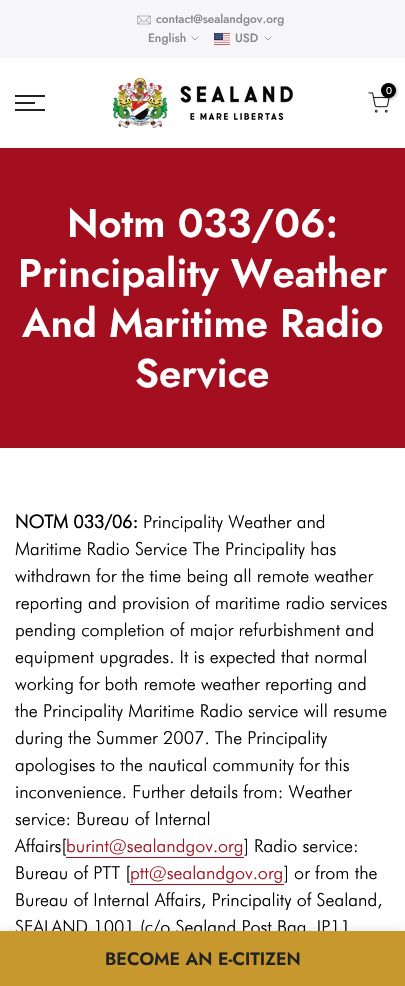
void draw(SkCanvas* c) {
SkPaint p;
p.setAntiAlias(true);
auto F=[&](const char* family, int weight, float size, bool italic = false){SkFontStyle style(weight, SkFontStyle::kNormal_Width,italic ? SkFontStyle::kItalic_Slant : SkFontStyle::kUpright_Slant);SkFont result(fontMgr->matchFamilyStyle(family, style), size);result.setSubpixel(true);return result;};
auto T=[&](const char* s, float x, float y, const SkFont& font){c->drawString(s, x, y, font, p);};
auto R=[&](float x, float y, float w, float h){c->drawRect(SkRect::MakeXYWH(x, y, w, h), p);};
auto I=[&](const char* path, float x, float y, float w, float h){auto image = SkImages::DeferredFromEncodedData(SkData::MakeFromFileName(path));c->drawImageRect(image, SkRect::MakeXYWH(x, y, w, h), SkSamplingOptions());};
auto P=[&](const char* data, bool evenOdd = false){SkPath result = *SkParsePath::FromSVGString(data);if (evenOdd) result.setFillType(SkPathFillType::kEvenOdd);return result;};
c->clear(0xffffffff);
p.setColor(0xfff6f6f8);
R(0,0,405,58);
I("1.png",137,15,14,10);
auto f1 = F("Jost",500,12);
p.setColor(0xff878787);
T("contact@sealandgov.org",156,23,f1);
T("English",148,42,f1);
p.setStroke(true);
p.setStrokeWidth(.8);
p.setStrokeCap(SkPaint::kSquare_Cap);
c->drawPath(P("M198 37l-3 3l-3-3"),p);
I("2.png",214,33,16,12);
p.setStroke(false);
T("USD",235,42,f1);
p.setStroke(true);
c->drawPath(P("M271 37l-3 3l-3-3"),p);
I("3.png",113,78,180,50);
I("4.png",368,92,22,21);
p.setStroke(false);
p.setColor(0x4d000000);
p.setMaskFilter(SkMaskFilter::MakeBlur(kNormal_SkBlurStyle, 1.5));
c->drawRoundRect(SkRect::MakeXYWH(382,84,15,15),7.5,7.5,p);
p.setMaskFilter(nullptr);
p.setColor(0xff000000);
c->drawCircle(388.5,90.5,7.5,p);
auto f2 = F("Jost",400,10);
p.setColor(0xffffffff);
T("0",386,94,f2);
p.setColor(0xff222222);
R(15,95,30,2);
R(15,102,20,2);
R(15,109,30,2);
p.setColor(0xffa30f1e);
R(0,148,405,300);
auto f3 = F("Jost",600,40);
p.setColor(0xffffffff);
T("Notm 033/06:",67,237,f3);
T("Principality Weather",18,287,f3);
T("And Maritime Radio",22,337,f3);
T("Service",135,387,f3);
auto f4 = F("Futura",700,18);
p.setColor(0xff020000);
T("NOTM 033/06:",15,528,f4);
auto f5 = F("Futura",300,18);
T("Principality Weather and",143,528,f5);
T("Maritime Radio Service The Principality has",15,555,f5);
T("withdrawn for the time being all remote weather",15,582,f5);
T("reporting and provision of maritime radio services",15,609,f5);
T("pending completion of major refurbishment and",15,636,f5);
T("equipment upgrades. It is expected that normal",15,663,f5);
T("working for both remote weather reporting and",15,690,f5);
T("the Principality Maritime Radio service will resume",15,717,f5);
T("during the Summer 2007. The Principality",15,744,f5);
T("apologises to the nautical community for this",15,771,f5);
T("inconvenience. Further details from: Weather",15,798,f5);
T("service: Bureau of Internal",15,825,f5);
T("Affairs[",15,852,f5);
p.setColor(0xffa30f1e);
T("burint@sealandgov.org",66,852,f5);
R(66,857,178,1);
p.setColor(0xff020000);
T("] Radio service:",244,852,f5);
T("Bureau of PTT [",15,879,f5);
p.setColor(0xffa30f1e);
T("ptt@sealandgov.org",130,879,f5);
R(130,884,154,1);
p.setColor(0xff020000);
T("] or from the",284,879,f5);
T("Bureau of Internal Affairs, Principality of Sealand,",15,906,f5);
T("SEALAND 1001 (c/o Sealand Post Bag, IP11",15,933,f5);
p.setColor(0x1f000000);
p.setMaskFilter(SkMaskFilter::MakeBlur(kNormal_SkBlurStyle, 4.5));
c->drawRect(SkRect::MakeXYWH(0,931,405,55),p);
p.setMaskFilter(nullptr);
p.setColor(0xffc7982d);
R(0,931,405,55);
auto f6 = F("Jost",600,18);
p.setColor(0xff222222);
T("BECOME AN E-CITIZEN",105,965,f6);
}
